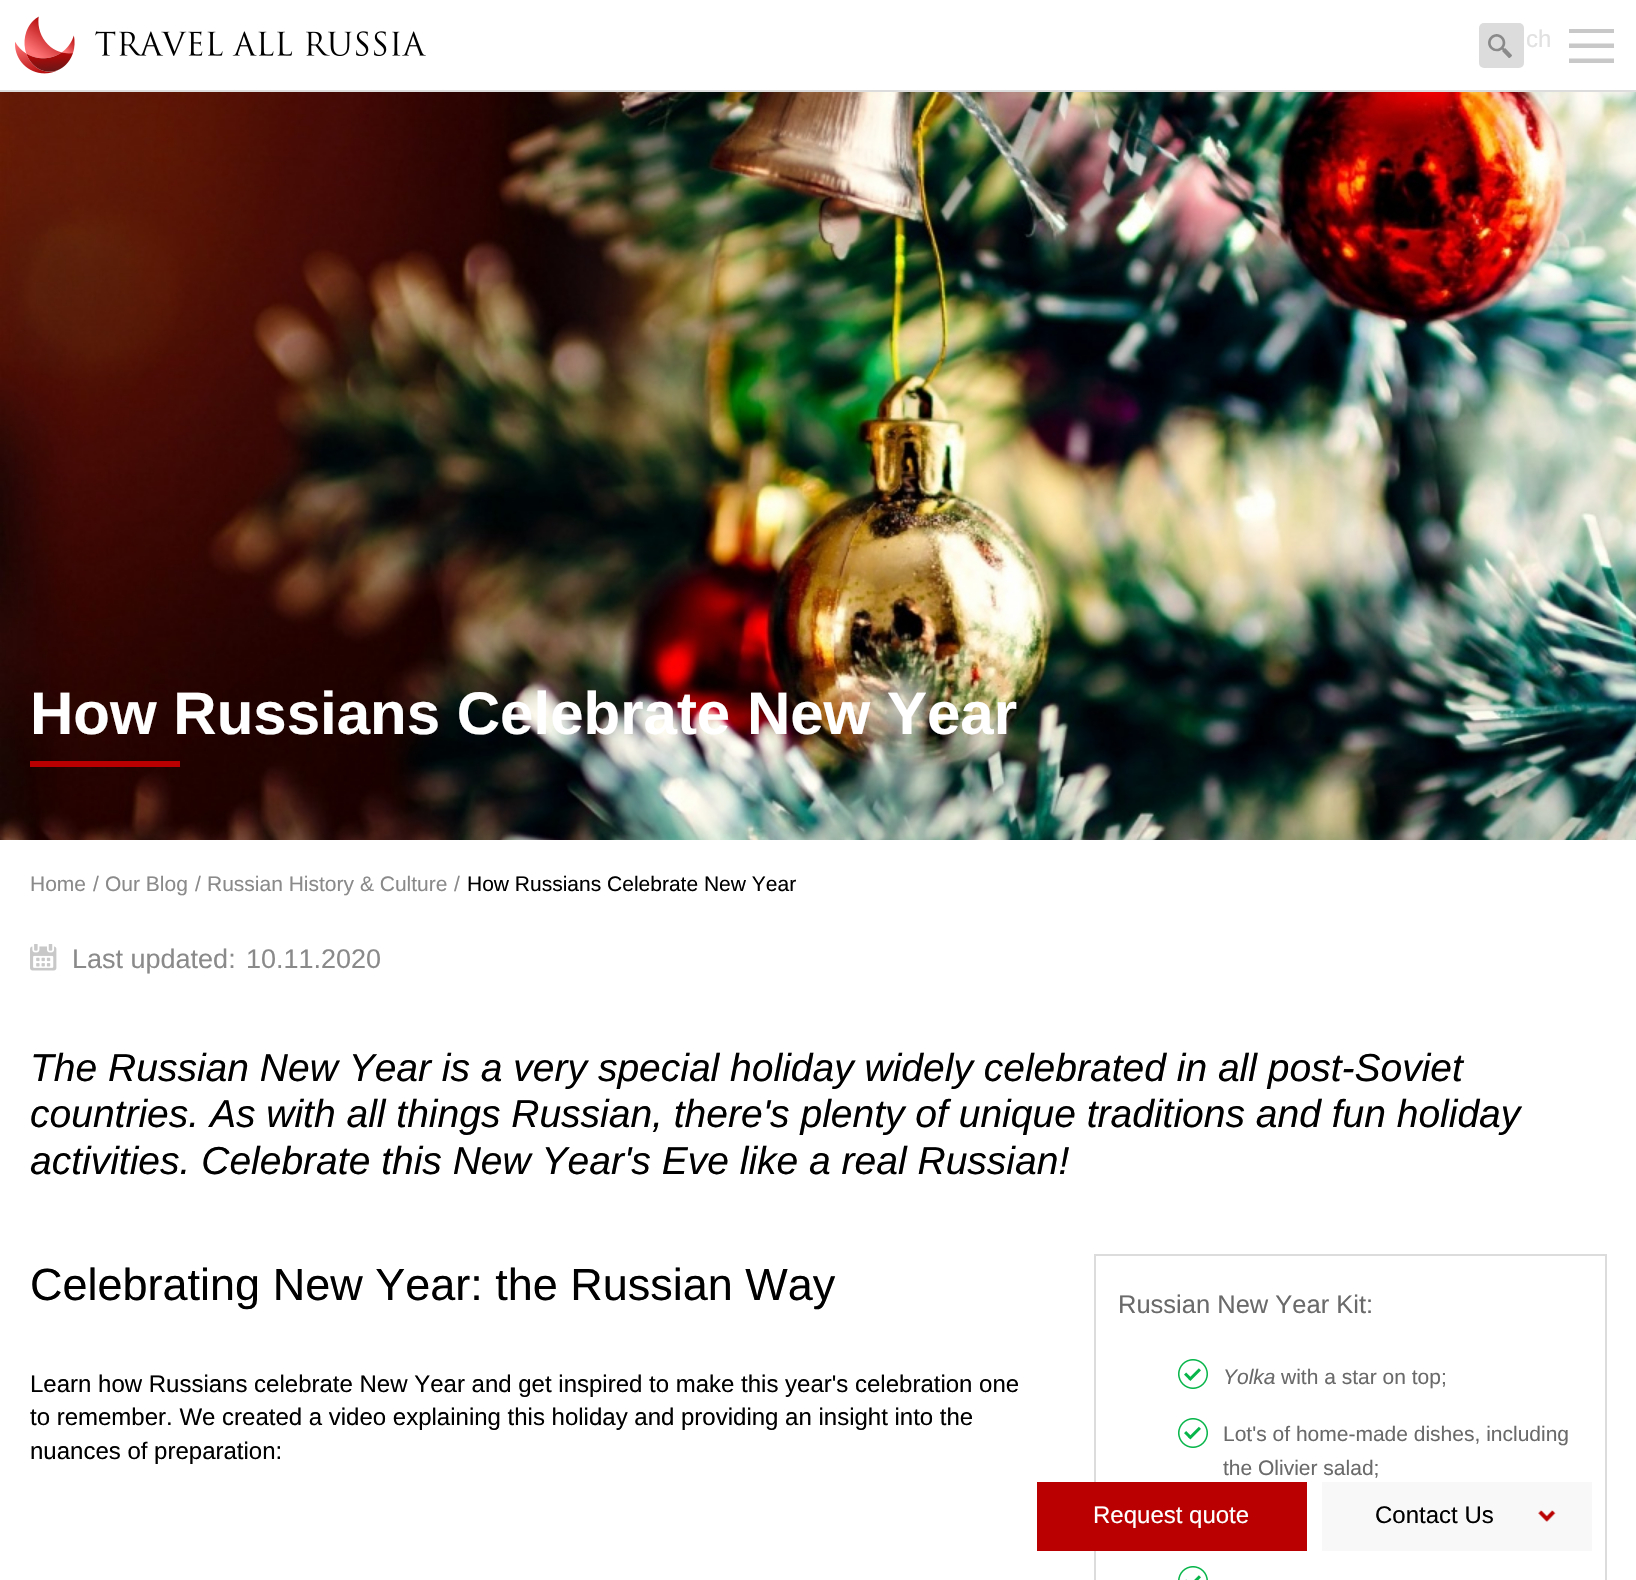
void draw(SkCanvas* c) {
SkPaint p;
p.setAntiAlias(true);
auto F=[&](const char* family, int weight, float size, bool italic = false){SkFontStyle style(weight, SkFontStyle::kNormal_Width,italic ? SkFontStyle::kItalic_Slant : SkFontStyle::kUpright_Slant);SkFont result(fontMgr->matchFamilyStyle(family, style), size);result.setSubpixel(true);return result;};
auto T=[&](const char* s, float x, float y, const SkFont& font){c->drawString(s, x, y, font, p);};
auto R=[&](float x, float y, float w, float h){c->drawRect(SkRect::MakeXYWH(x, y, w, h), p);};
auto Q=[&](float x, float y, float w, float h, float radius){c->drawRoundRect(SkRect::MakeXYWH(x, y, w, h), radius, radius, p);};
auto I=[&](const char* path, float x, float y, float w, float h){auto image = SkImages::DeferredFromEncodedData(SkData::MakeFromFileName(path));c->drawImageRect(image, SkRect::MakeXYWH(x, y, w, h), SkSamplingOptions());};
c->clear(0xffffffff);
p.setColor(0xffdcdcdc);
R(0,90,1636,2);
I("1.png",15,16,60,58);
I("2.png",95,31,331,25);
Q(1479,23,45,45,5);
I("3.png",1488,34,24,24);
auto f1 = F("Liberation Sans",400,24);
p.setColor(0xffe1e1e1);
T("ch",1526,47,f1);
I("4.png",1569,29,45,34);
I("5.png",0,92,1636,748);
auto f2 = F("Liberation Sans",700,60);
p.setColor(0xffffffff);
T("How Russians Celebrate New Year",30,734,f2);
p.setColor(0xffba0000);
R(30,761,150,6);
auto f3 = F("Liberation Sans",400,21);
p.setColor(0xff8a8a8a);
T("Home",30,891,f3);
T("/",93,891,f3);
T("Our Blog",105,891,f3);
T("/",195,891,f3);
T("Russian History & Culture",207,891,f3);
T("/",454,891,f3);
p.setColor(0xff000000);
T("How Russians Celebrate New Year",467,891,f3);
I("6.png",30,944,27,27);
auto f4 = F("Liberation Sans",400,27);
p.setColor(0xff8a8a8a);
T("Last updated:",72,968,f4);
T("10.11.2020",246,968,f4);
auto f5 = F("Liberation Sans",400,39,true);
p.setColor(0xff000000);
T("The Russian New Year is a very special holiday widely celebrated in all post-Soviet",30,1081,f5);
T("countries. As with all things Russian, there's plenty of unique traditions and fun holiday",30,1127,f5);
T("activities. Celebrate this New Year's Eve like a real Russian!",30,1174,f5);
auto f6 = F("Liberation Sans",400,45);
T("Celebrating New Year: the Russian Way",30,1300,f6);
T("Learn how Russians celebrate New Year and get inspired to make this year's celebration one",30,1392,f1);
T("to remember. We created a video explaining this holiday and providing an insight into the",30,1425,f1);
T("nuances of preparation:",30,1459,f1);
p.setStroke(true);
p.setStrokeWidth(2);
p.setColor(0xffdcdcdc);
c->drawRect(SkRect::MakeXYWH(1095,1255,511,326),p);
auto f7 = F("Liberation Sans",400,25.5);
p.setStroke(false);
p.setColor(0xff6a6a6a);
T("Russian New Year Kit:",1118,1313,f7);
I("7.png",1178,1359,30,30);
auto f8 = F("Liberation Sans",400,21,true);
T("Yolka",1223,1384,f8);
T("with a star on top;",1281,1384,f3);
I("8.png",1178,1418,30,30);
T("Lot's of home-made dishes, including",1223,1441,f3);
T("the Olivier salad;",1223,1475,f3);
I("9.png",1178,1566,30,14);
p.setColor(0xffba0000);
R(1037,1482,270,69);
p.setColor(0xffffffff);
T("Request quote",1093,1523,f1);
p.setColor(0xfff8f8f8);
R(1322,1482,270,69);
p.setColor(0xff000000);
T("Contact Us",1375,1523,f1);
I("10.png",1538,1510,18,12);
}
